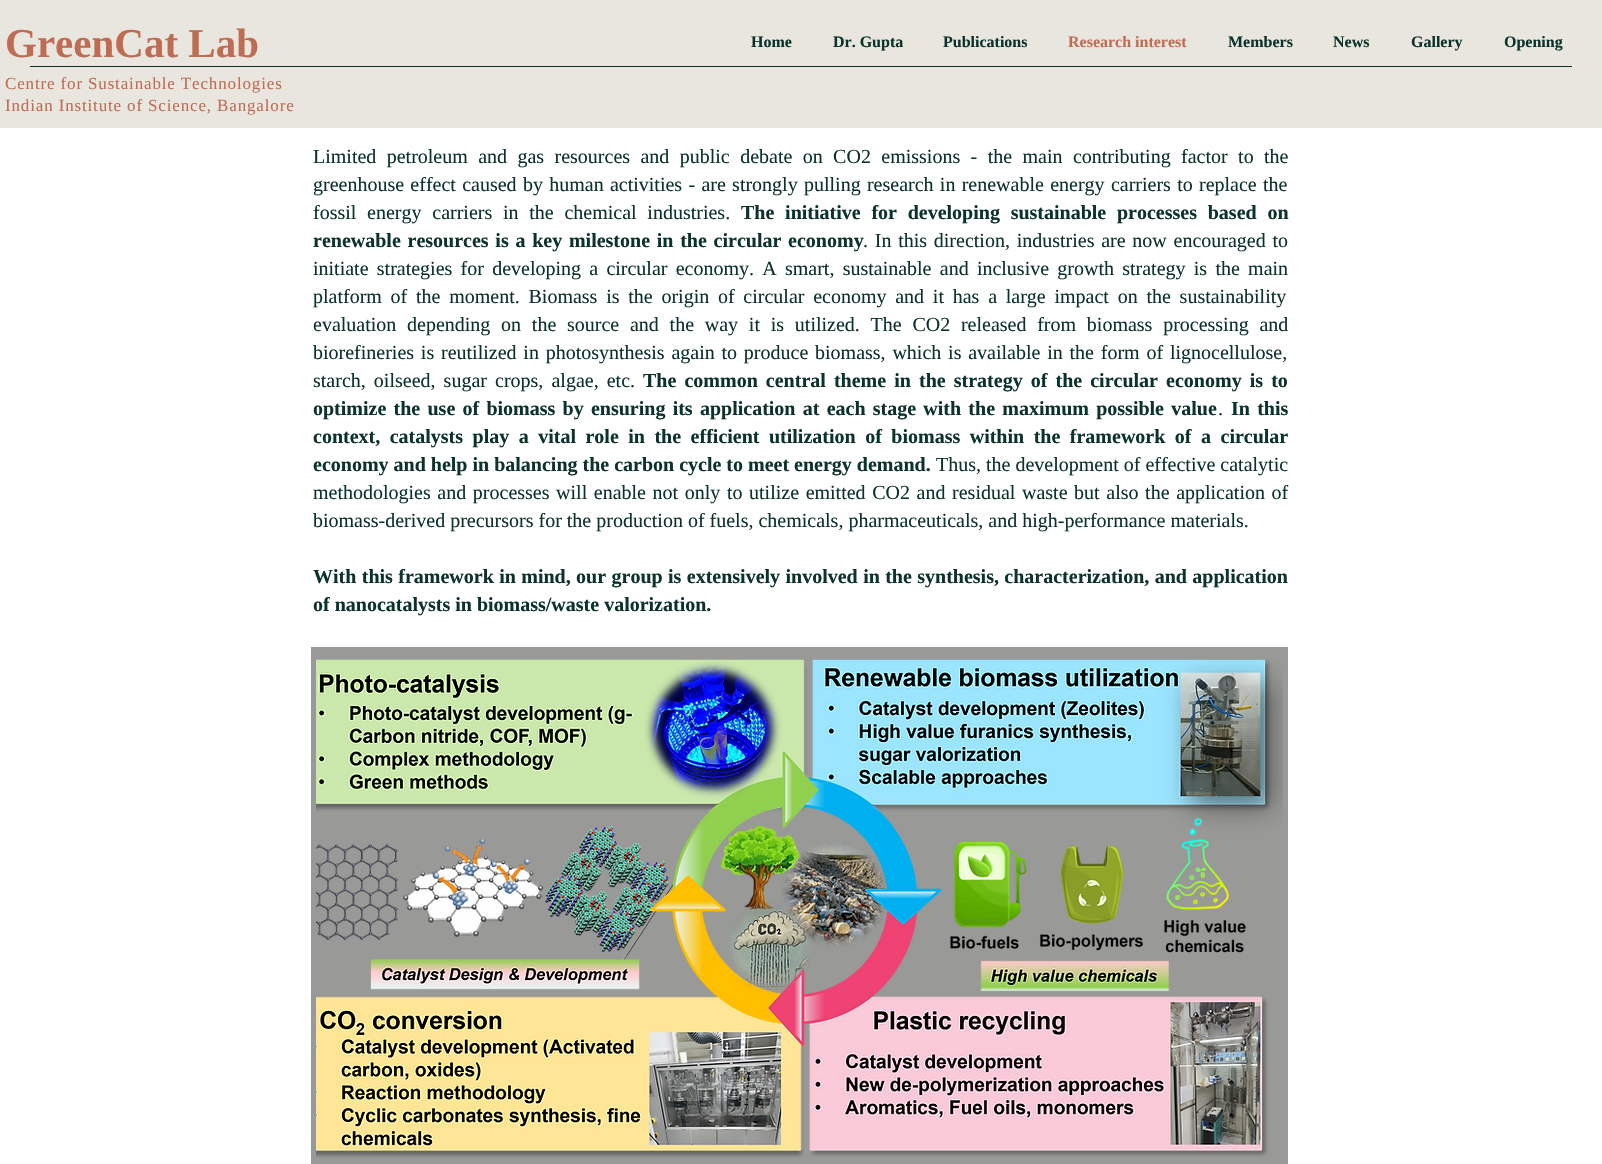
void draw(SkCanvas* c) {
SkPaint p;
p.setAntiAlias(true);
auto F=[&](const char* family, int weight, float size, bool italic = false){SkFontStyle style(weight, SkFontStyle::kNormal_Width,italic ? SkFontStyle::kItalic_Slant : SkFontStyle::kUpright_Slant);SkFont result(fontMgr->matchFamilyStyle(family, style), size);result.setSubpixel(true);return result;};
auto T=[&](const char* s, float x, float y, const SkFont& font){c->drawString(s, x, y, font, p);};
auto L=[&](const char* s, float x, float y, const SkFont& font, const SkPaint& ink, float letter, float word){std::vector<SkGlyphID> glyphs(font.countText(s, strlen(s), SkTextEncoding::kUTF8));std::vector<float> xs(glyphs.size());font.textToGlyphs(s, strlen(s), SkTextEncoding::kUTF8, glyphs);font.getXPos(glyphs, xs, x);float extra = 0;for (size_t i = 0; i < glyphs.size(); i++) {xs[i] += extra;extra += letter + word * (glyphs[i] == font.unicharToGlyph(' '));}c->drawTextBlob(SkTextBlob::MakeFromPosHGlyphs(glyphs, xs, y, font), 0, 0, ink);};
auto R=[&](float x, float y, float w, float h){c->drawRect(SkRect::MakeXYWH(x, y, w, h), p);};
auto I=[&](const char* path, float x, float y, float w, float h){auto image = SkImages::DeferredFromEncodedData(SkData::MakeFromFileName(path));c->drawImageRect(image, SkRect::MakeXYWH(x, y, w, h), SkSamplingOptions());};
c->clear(0xffffffff);
p.setColor(0xffe9e6df);
R(0,0,1602,128);
auto f1 = F("Liberation Serif",700,41);
p.setColor(0xffbe6d54);
T("GreenCat Lab",5,57,f1);
auto f2 = F("Liberation Serif",400,17);
L("Centre for Sustainable Technologies",5,89,f2,p,.85,0);
L("Indian Institute of Science, Bangalore",5,111,f2,p,.85,0);
auto f3 = F("Liberation Serif",700,16);
p.setColor(0xff0b322b);
T("Home",751,47,f3);
T("Dr. Gupta",833,47,f3);
T("Publications",943,47,f3);
p.setColor(0xffbe6d54);
T("Research interest",1068,47,f3);
p.setColor(0xff0b322b);
T("Members",1228,47,f3);
T("News",1333,47,f3);
T("Gallery",1411,47,f3);
T("Opening",1504,47,f3);
R(30,66,1542,1);
auto f4 = F("Liberation Serif",400,20);
L("Limited petroleum and gas resources and public debate on CO2 emissions - the main contributing factor to the",313,163,f4,p,0,5.4);
L("greenhouse effect caused by human activities - are strongly pulling research in renewable energy carriers to replace the",313,191,f4,p,0,1.3);
L("fossil energy carriers in the chemical industries.",313,219,f4,p,0,5.75);
auto f5 = F("Liberation Serif",700,20);
L("The initiative for developing sustainable processes based on",741,219,f5,p,0,5.75);
L("renewable resources is a key milestone in the circular economy",313,247,f5,p,0,1.75);
L(". In this direction, industries are now encouraged to",863,247,f4,p,0,1.75);
L("initiate strategies for developing a circular economy. A smart, sustainable and inclusive growth strategy is the main",313,275,f4,p,0,3.25);
L("platform of the moment. Biomass is the origin of circular economy and it has a large impact on the sustainability",313,303,f4,p,0,3.75);
L("evaluation depending on the source and the way it is utilized. The CO2 released from biomass processing and",313,331,f4,p,0,5.75);
L("biorefineries is reutilized in photosynthesis again to produce biomass, which is available in the form of lignocellulose,",313,359,f4,p,0,1.8);
L("starch, oilseed, sugar crops, algae, etc.",313,387,f4,p,0,3.1);
L("The common central theme in the strategy of the circular economy is to",643,387,f5,p,0,3.1);
L("optimize the use of biomass by ensuring its application at each stage with the maximum possible value",313,415,f5,p,0,2.25);
T(".",1218,415,f4);
L("In this",1231,415,f5,p,0,2.25);
L("context, catalysts play a vital role in the efficient utilization of biomass within the framework of a circular",313,443,f5,p,0,4.5);
T("economy and help in balancing the carbon cycle to meet energy demand.",313,471,f5);
T("Thus, the development of effective catalytic",936,471,f4);
L("methodologies and processes will enable not only to utilize emitted CO2 and residual waste but also the application of",313,499,f4,p,0,1.6);
T("biomass-derived precursors for the production of fuels, chemicals, pharmaceuticals, and high-performance materials.",313,527,f4);
L("With this framework in mind, our group is extensively involved in the synthesis, characterization, and application",313,583,f5,p,0,.4);
T("of nanocatalysts in biomass/waste valorization.",313,611,f5);
p.setColor(0xff999997);
R(311,647,977,517);
I("1.png",316,659,967,499);
}
